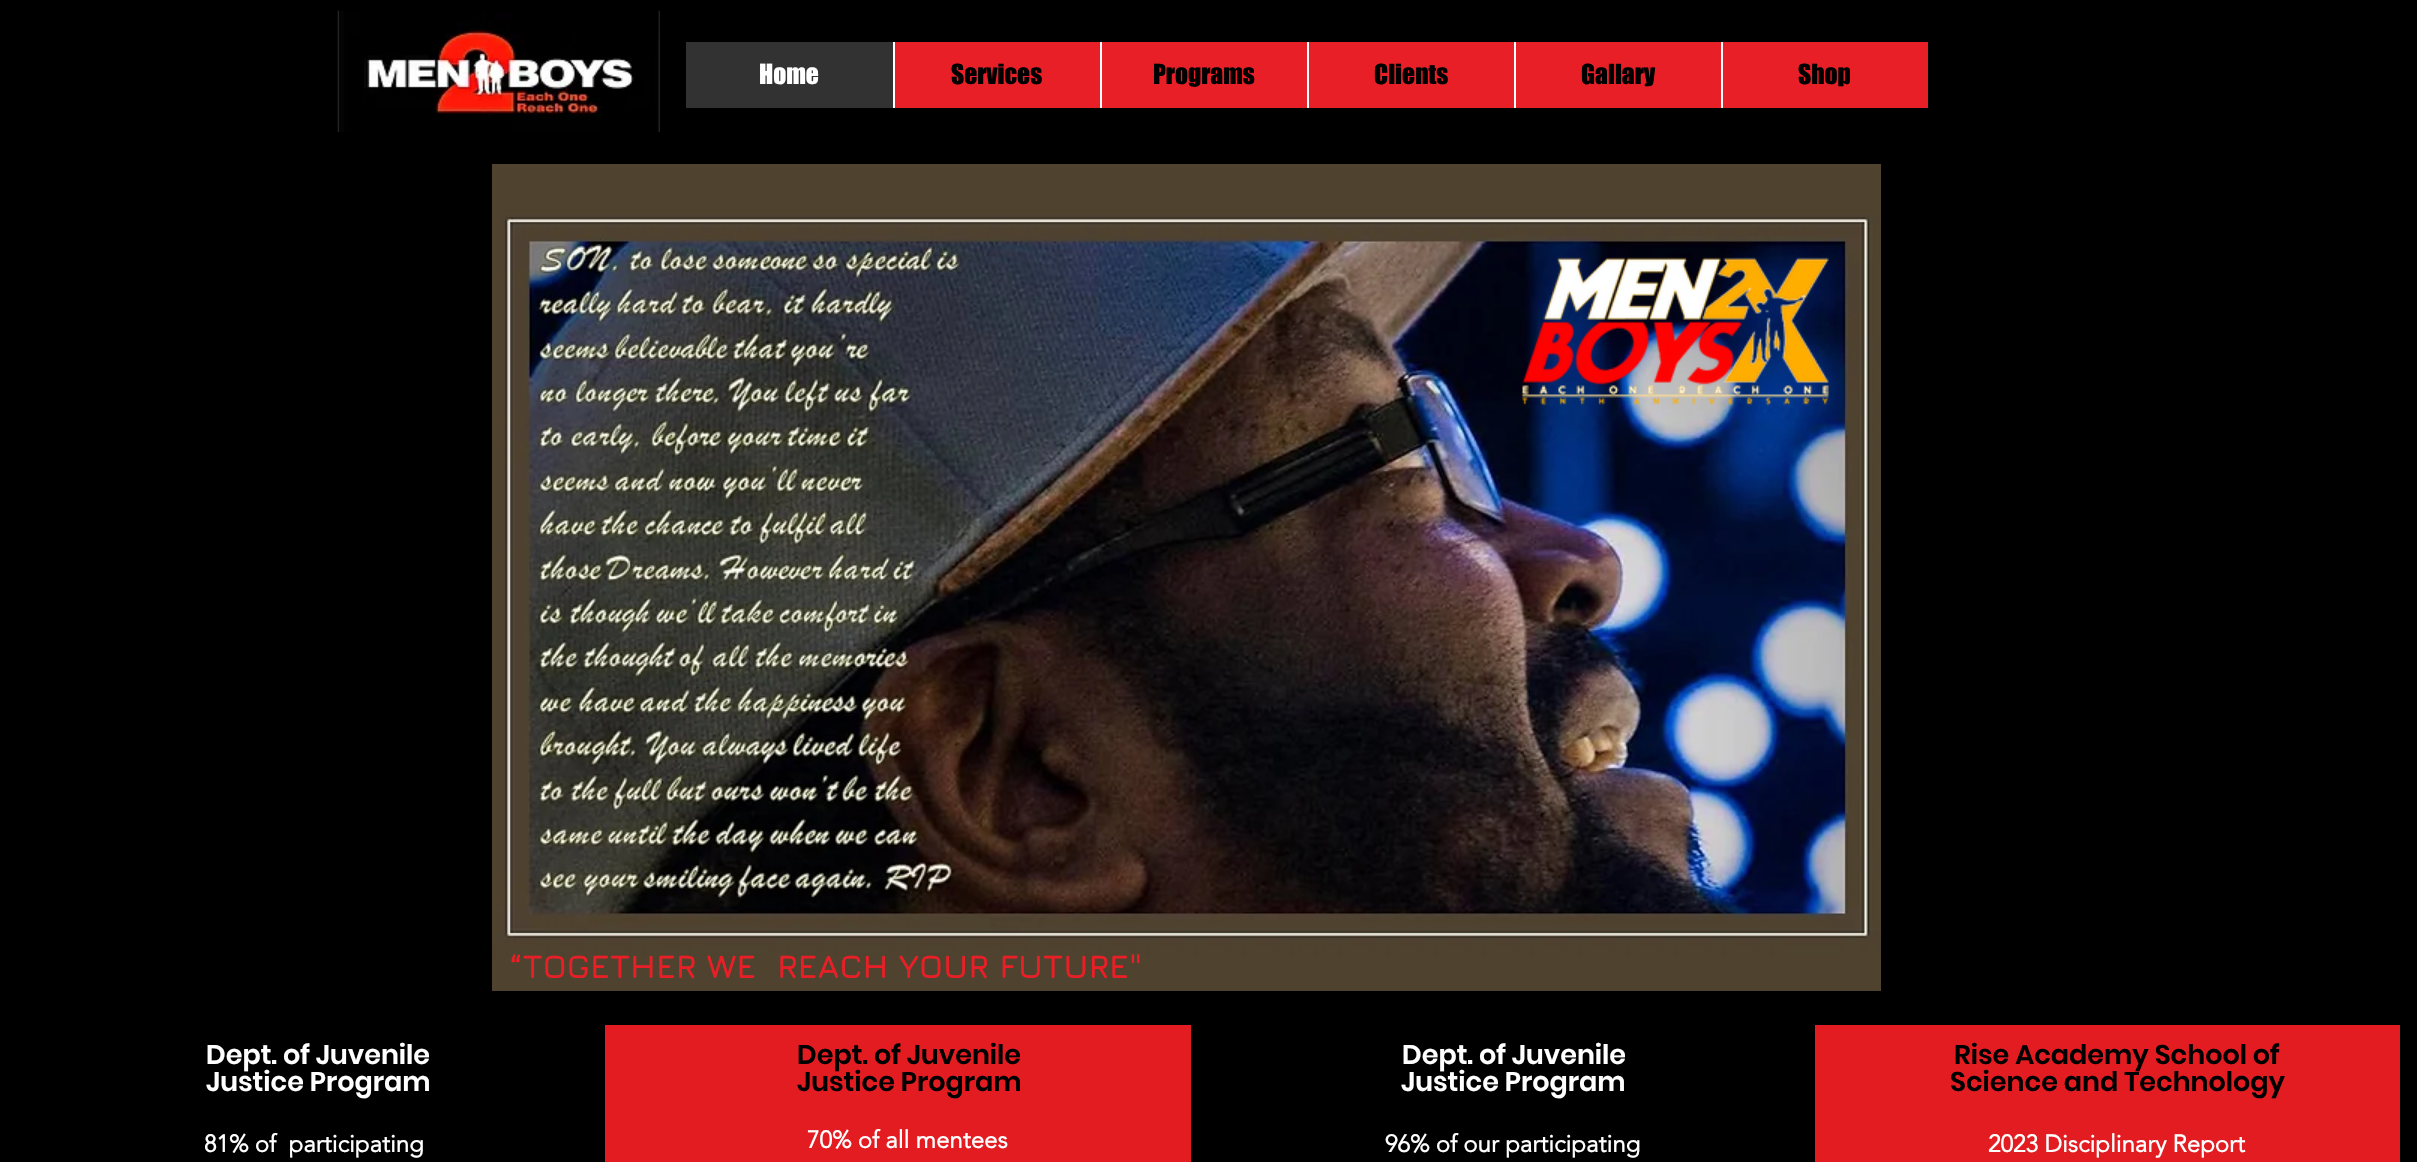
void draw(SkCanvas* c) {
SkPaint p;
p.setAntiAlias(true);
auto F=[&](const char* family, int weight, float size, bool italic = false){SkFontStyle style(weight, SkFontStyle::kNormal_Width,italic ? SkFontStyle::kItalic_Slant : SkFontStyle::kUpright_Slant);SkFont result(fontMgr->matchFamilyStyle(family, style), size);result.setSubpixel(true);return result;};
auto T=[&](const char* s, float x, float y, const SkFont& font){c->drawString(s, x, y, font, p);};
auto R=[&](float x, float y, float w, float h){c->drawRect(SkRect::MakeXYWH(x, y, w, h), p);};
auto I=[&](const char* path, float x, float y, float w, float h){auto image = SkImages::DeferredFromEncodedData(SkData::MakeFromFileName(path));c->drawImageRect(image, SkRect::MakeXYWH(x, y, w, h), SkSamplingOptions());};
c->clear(0xff000000);
I("1.png",337,10,323,122);
p.setColor(0xffe81f27);
R(895,42,1033,66);
p.setColor(0xff323232);
R(686,42,207,66);
auto f1 = F("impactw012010",400,25.5);
p.setColor(0xffffffff);
T("Home",759,84,f1);
R(893,42,2,66);
p.setColor(0xff000000);
T("Services",951,84,f1);
p.setColor(0xffffffff);
R(1100,42,2,66);
p.setColor(0xff000000);
T("Programs",1153,84,f1);
p.setColor(0xffffffff);
R(1307,42,2,66);
p.setColor(0xff000000);
T("Clients",1374,84,f1);
p.setColor(0xffffffff);
R(1514,42,2,66);
p.setColor(0xff000000);
T("Gallary",1581,84,f1);
p.setColor(0xffffffff);
R(1721,42,2,66);
p.setColor(0xff000000);
T("Shop",1798,84,f1);
I("2.png",492,164,1389,827);
I("3.png",1521,257,309,149);
auto f2 = F("Jura",700,33);
p.setColor(0xffe81f27);
T("“TOGETHER WE  REACH YOUR FUTURE\"",509,978,f2);
auto f3 = F("Poppins",600,27);
p.setColor(0xffffffff);
T("Dept. of Juvenile",206,1064,f3);
T("Justice Program",206,1091,f3);
auto f4 = F("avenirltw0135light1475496",700,24);
T("81% of  participating",204,1152,f4);
p.setColor(0xffe21c21);
R(605,1025,586,137);
p.setColor(0xff000000);
T("Dept. of Juvenile",797,1064,f3);
T("Justice Program",797,1091,f3);
p.setColor(0xffffffff);
T("70% of all mentees",807,1148,f4);
T("Dept. of Juvenile",1402,1064,f3);
T("Justice Program",1401,1091,f3);
T("96% of our participating",1385,1152,f4);
p.setColor(0xffe21c21);
R(1815,1025,585,137);
p.setColor(0xff000000);
T("Rise Academy School of",1954,1064,f3);
T("Science and Technology",1950,1091,f3);
p.setColor(0xffffffff);
T("2023 Disciplinary Report",1988,1152,f4);
}
